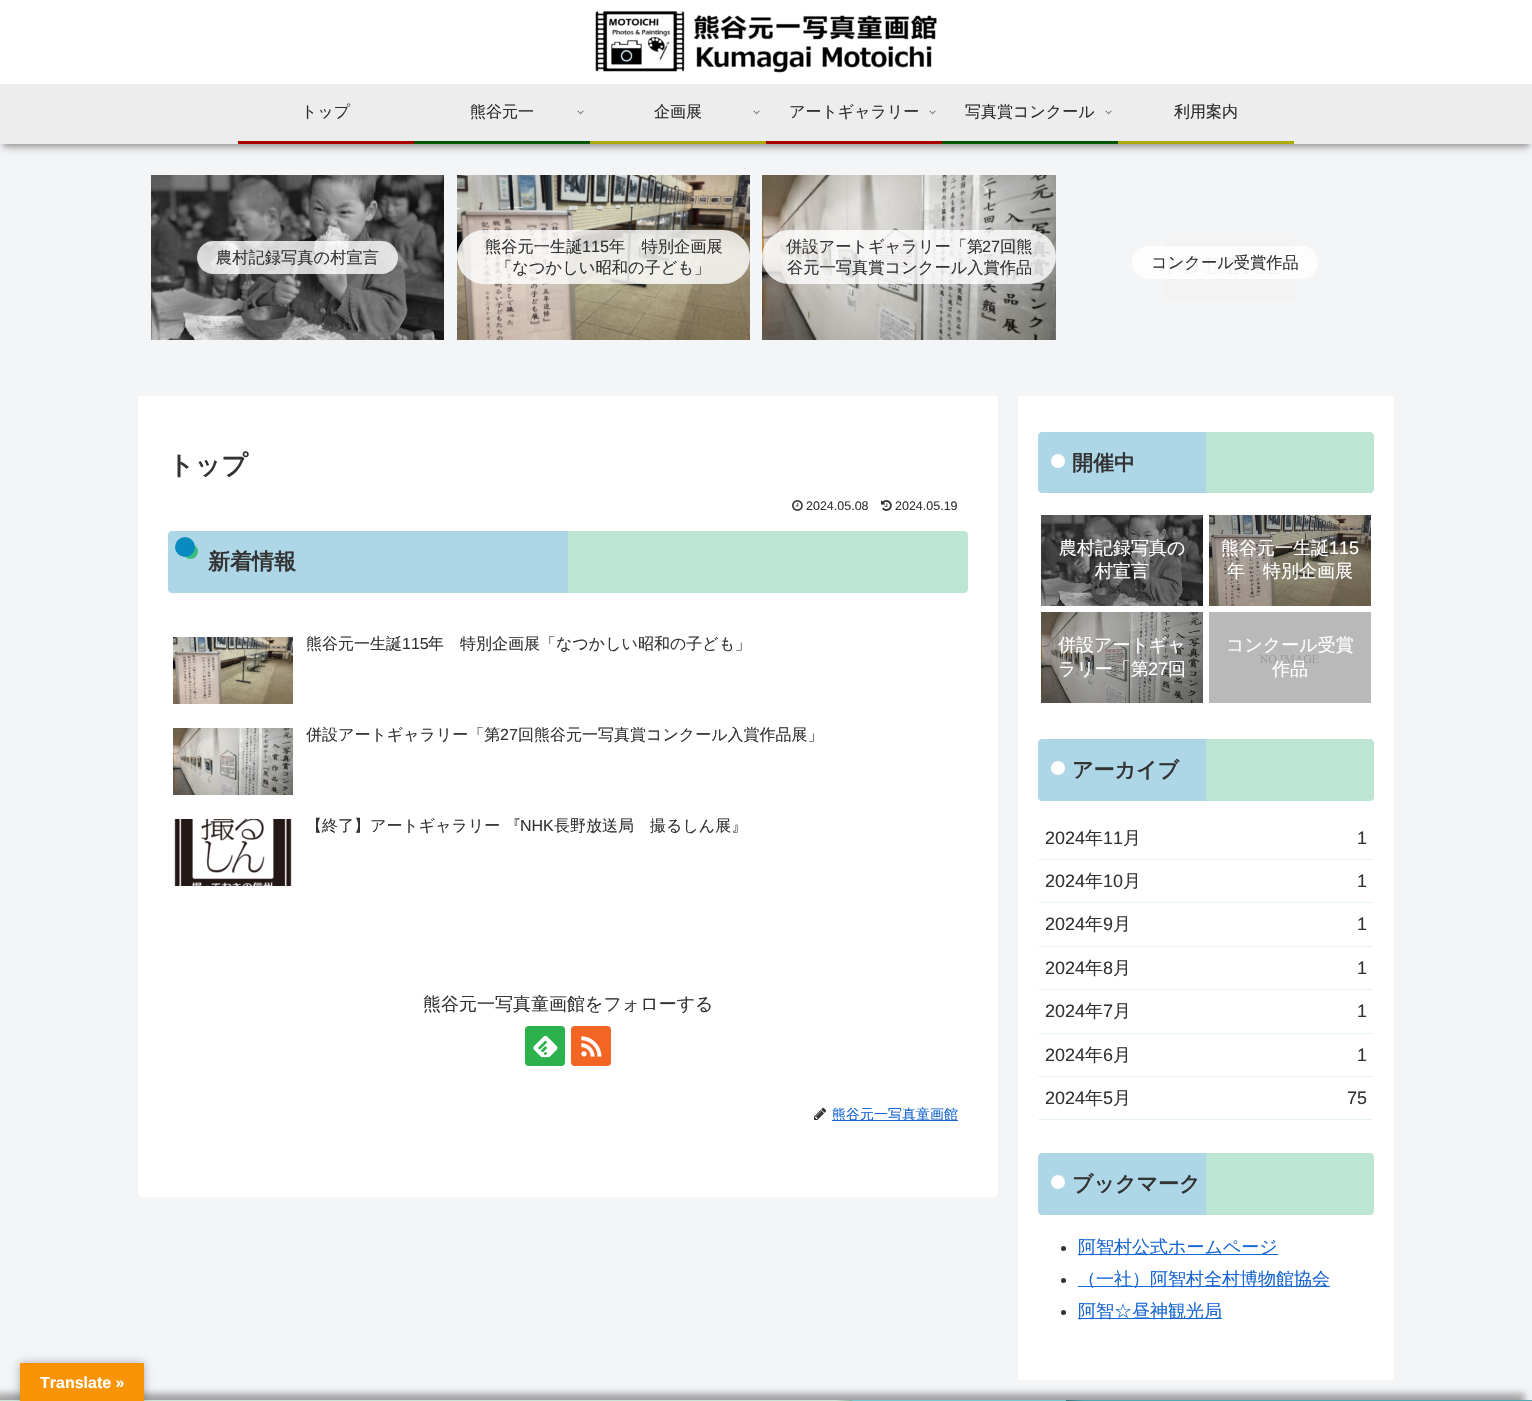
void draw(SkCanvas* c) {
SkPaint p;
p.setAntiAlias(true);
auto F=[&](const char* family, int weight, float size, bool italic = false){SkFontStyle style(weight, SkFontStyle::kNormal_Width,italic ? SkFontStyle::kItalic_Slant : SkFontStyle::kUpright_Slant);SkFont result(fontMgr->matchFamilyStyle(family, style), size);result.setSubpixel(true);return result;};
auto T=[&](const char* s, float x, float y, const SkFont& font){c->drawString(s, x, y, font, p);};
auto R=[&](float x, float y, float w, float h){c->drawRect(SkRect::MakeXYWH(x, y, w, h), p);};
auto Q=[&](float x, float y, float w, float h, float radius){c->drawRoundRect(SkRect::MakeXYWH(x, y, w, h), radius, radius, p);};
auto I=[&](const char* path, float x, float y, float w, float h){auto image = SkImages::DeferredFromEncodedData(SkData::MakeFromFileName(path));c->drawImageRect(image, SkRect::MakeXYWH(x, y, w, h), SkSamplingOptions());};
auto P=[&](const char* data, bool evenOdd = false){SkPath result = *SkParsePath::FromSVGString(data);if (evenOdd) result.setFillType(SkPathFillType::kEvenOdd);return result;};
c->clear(0xfff4f5f7);
p.setColor(0x2e000000);
p.setMaskFilter(SkMaskFilter::MakeBlur(kNormal_SkBlurStyle, 5));
c->drawRect(SkRect::MakeXYWH(3,9,1526,138),p);
p.setMaskFilter(nullptr);
p.setColor(0x3d000000);
p.setMaskFilter(SkMaskFilter::MakeBlur(kNormal_SkBlurStyle, 2.5));
c->drawRect(SkRect::MakeXYWH(3,9,1526,138),p);
p.setMaskFilter(nullptr);
p.setColor(0xffffffff);
R(0,0,1532,84);
I("1.png",595,11,342,62);
p.setColor(0xffededed);
R(0,84,1532,60);
p.setColor(0xffaa0000);
R(238,141,176,3);
auto f1 = F("WenQuanYi Zen Hei",500,16);
p.setColor(0xff2b2b2b);
T("トップ",301,117,f1);
p.setColor(0xff005500);
R(414,141,176,3);
p.setColor(0xff2b2b2b);
T("熊谷元一",470,117,f1);
I("2.png",577,110,7,5);
p.setColor(0xffaaaa00);
R(590,141,176,3);
p.setColor(0xff2b2b2b);
T("企画展",654,117,f1);
I("2.png",753,110,7,5);
p.setColor(0xffaa0000);
R(766,141,176,3);
p.setColor(0xff2b2b2b);
T("アートギャラリー",789,117,f1);
I("2.png",929,110,7,5);
p.setColor(0xff005500);
R(942,141,176,3);
p.setColor(0xff2b2b2b);
T("写真賞コンクール",965,117,f1);
I("2.png",1105,110,7,5);
p.setColor(0xffaaaa00);
R(1118,141,176,3);
p.setColor(0xff2b2b2b);
T("利用案内",1174,117,f1);
I("3.png",151,175,293,165);
p.setColor(0xccffffff);
Q(197,241,201,33,16.5);
auto f2 = F("WenQuanYi Zen Hei",500,16.25);
p.setColor(0xff333333);
T("農村記録写真の村宣言",216,263,f2);
I("4.png",457,175,293,165);
p.setColor(0xccffffff);
Q(457,230,293,54,27);
p.setColor(0xff333333);
T("熊谷元一生誕",485,252,f2);
auto f3 = F("Liberation Sans",400,16.25);
T("115",582,252,f3);
T("年　特別企画展",609,252,f2);
T("「なつかしい昭和の子ども」",496,273,f2);
I("5.png",762,175,294,165);
p.setColor(0xccffffff);
Q(762,230,294,54,27);
p.setColor(0xff333333);
T("併設アートギャラリー「第",786,252,f2);
T("27",982,252,f3);
T("回熊",1000,252,f2);
T("谷元一写真賞コンクール入賞作品",787,273,f2);
I("6.png",1164,239,130,61);
p.setColor(0xccffffff);
Q(1132,246,186,33,16.5);
p.setColor(0xff333333);
T("コンクール受賞作品",1151,268,f2);
p.setColor(0xffffffff);
Q(138,396,860,801,4);
auto f4 = F("WenQuanYi Zen Hei",700,26);
p.setColor(0xff333333);
T("トップ",168,474,f4);
I("7.png",792,500,11,11);
auto f5 = F("Liberation Sans",400,12.5);
T("2024.05.08",806,510,f5);
I("8.png",881,500,11,11);
T("2024.05.19",895,510,f5);
p.setColor(0xfff5f6f7);
Q(168,531,800,62,4);
p.setColor(0x4d088cc0);
c->drawPath(P("M172 531h396v62h-396c-2 0-4-2-4-4v-54c0-2 2-4 4-4z"),p);
p.setColor(0x4d39bc80);
c->drawPath(P("M568 531h396c2 0 4 2 4 4v54c0 2-2 4-4 4h-396z"),p);
p.setColor(0xff39bc80);
c->drawCircle(190.5,551.5,7.5,p);
p.setColor(0xff088cc0);
c->drawCircle(185,547,10,p);
auto f6 = F("WenQuanYi Zen Hei",700,22);
p.setColor(0xff333333);
T("新着情報",208,569,f6);
I("9.png",173,637,120,67);
T("熊谷元一生誕",306,649,f1);
auto f7 = F("Liberation Sans",400,16);
T("115",402,649,f7);
T("年　特別企画展「なつかしい昭和の子ども」",428,649,f1);
I("10.png",173,728,120,67);
T("併設アートギャラリー「第",306,740,f1);
T("27",500,740,f7);
T("回熊谷元一写真賞コンクール入賞作品展」",518,740,f1);
I("11.png",174,819,118,67);
T("【終了】アートギャラリー 『",306,831,f1);
T("NHK",520,831,f7);
T("長野放送局　撮るしん展』",554,831,f1);
auto f8 = F("WenQuanYi Zen Hei",500,18);
T("熊谷元一写真童画館をフォローする",423,1010,f8);
p.setColor(0xff2bb24c);
Q(525,1026,40,40,4);
I("12.png",533,1035,25,23);
p.setColor(0xfff26522);
Q(571,1026,40,40,4);
I("13.png",581,1036,21,21);
I("14.png",814,1107,13,13);
p.setColor(0xff1967d2);
R(832,1120,126,1);
auto f9 = F("WenQuanYi Zen Hei",500,14);
T("熊谷元一写真童画館",832,1119,f9);
p.setColor(0xffffffff);
Q(1018,396,376,984,4);
p.setColor(0xfff5f6f7);
Q(1038,432,336,61,4);
p.setColor(0x4d088cc0);
c->drawPath(P("M1042 432h164v61h-164c-2 0-4-2-4-4v-53c0-2 2-4 4-4z"),p);
p.setColor(0x4d39bc80);
c->drawPath(P("M1206 432h164c2 0 4 2 4 4v53c0 2-2 4-4 4h-164z"),p);
p.setColor(0xffffffff);
c->drawCircle(1058,461,7,p);
auto f10 = F("WenQuanYi Zen Hei",700,21);
p.setColor(0xff333333);
T("開催中",1072,470,f10);
I("15.png",1041,515,162,91);
p.setColor(0xffffffff);
T("農村記録写真の",1059,554,f8);
T("村宣言",1095,577,f8);
I("16.png",1209,515,162,91);
T("熊谷元一生誕",1221,554,f8);
auto f11 = F("Liberation Sans",400,18);
T("115",1329,554,f11);
T("年　特別企画展",1227,577,f8);
I("17.png",1041,612,162,91);
T("併設アートギャ",1058,651,f8);
T("ラリー「第",1058,675,f8);
T("27",1148,675,f11);
T("回",1168,675,f8);
I("18.png",1209,612,162,91);
T("コンクール受賞",1226,651,f8);
T("作品",1272,675,f8);
p.setColor(0xfff5f6f7);
Q(1038,739,336,62,4);
p.setColor(0x4d088cc0);
c->drawPath(P("M1042 739h164v62h-164c-2 0-4-2-4-4v-54c0-2 2-4 4-4z"),p);
p.setColor(0x4d39bc80);
c->drawPath(P("M1206 739h164c2 0 4 2 4 4v54c0 2-2 4-4 4h-164z"),p);
p.setColor(0xffffffff);
c->drawCircle(1058,768,7,p);
p.setColor(0xff333333);
T("アーカイブ",1072,777,f10);
p.setStroke(true);
p.setStrokeWidth(1);
p.setColor(0xffcce7ee);
p.setPathEffect(SkDashPathEffect::Make({{1,1}}, 0));
c->drawPath(P("M1038 859.5h336"),p);
p.setPathEffect(nullptr);
p.setStroke(false);
p.setColor(0xff333333);
T("2024",1045,844,f11);
T("年",1085,844,f8);
T("11",1103,844,f11);
T("月",1123,844,f8);
T("1",1357,844,f11);
p.setStroke(true);
p.setColor(0xffcce7ee);
p.setPathEffect(SkDashPathEffect::Make({{1,1}}, 0));
c->drawPath(P("M1038 902.5h336"),p);
p.setPathEffect(nullptr);
p.setStroke(false);
p.setColor(0xff333333);
T("2024",1045,887,f11);
T("年",1085,887,f8);
T("10",1103,887,f11);
T("月",1123,887,f8);
T("1",1357,887,f11);
p.setStroke(true);
p.setColor(0xffcce7ee);
p.setPathEffect(SkDashPathEffect::Make({{1,1}}, 0));
c->drawPath(P("M1038 946.5h336"),p);
p.setPathEffect(nullptr);
p.setStroke(false);
p.setColor(0xff333333);
T("2024",1045,930,f11);
T("年",1085,930,f8);
T("9",1103,930,f11);
T("月",1113,930,f8);
T("1",1357,930,f11);
p.setStroke(true);
p.setColor(0xffcce7ee);
p.setPathEffect(SkDashPathEffect::Make({{1,1}}, 0));
c->drawPath(P("M1038 989.5h336"),p);
p.setPathEffect(nullptr);
p.setStroke(false);
p.setColor(0xff333333);
T("2024",1045,974,f11);
T("年",1085,974,f8);
T("8",1103,974,f11);
T("月",1113,974,f8);
T("1",1357,974,f11);
p.setStroke(true);
p.setColor(0xffcce7ee);
p.setPathEffect(SkDashPathEffect::Make({{1,1}}, 0));
c->drawPath(P("M1038 1033.5h336"),p);
p.setPathEffect(nullptr);
p.setStroke(false);
p.setColor(0xff333333);
T("2024",1045,1017,f11);
T("年",1085,1017,f8);
T("7",1103,1017,f11);
T("月",1113,1017,f8);
T("1",1357,1017,f11);
p.setStroke(true);
p.setColor(0xffcce7ee);
p.setPathEffect(SkDashPathEffect::Make({{1,1}}, 0));
c->drawPath(P("M1038 1076.5h336"),p);
p.setPathEffect(nullptr);
p.setStroke(false);
p.setColor(0xff333333);
T("2024",1045,1061,f11);
T("年",1085,1061,f8);
T("6",1103,1061,f11);
T("月",1113,1061,f8);
T("1",1357,1061,f11);
p.setStroke(true);
p.setColor(0xffcce7ee);
p.setPathEffect(SkDashPathEffect::Make({{1,1}}, 0));
c->drawPath(P("M1038 1119.5h336"),p);
p.setPathEffect(nullptr);
p.setStroke(false);
p.setColor(0xff333333);
T("2024",1045,1104,f11);
T("年",1085,1104,f8);
T("5",1103,1104,f11);
T("月",1113,1104,f8);
T("75",1347,1104,f11);
p.setColor(0xfff5f6f7);
Q(1038,1153,336,62,4);
p.setColor(0x4d088cc0);
c->drawPath(P("M1042 1153h164v62h-164c-2 0-4-2-4-4v-54c0-2 2-4 4-4z"),p);
p.setColor(0x4d39bc80);
c->drawPath(P("M1206 1153h164c2 0 4 2 4 4v54c0 2-2 4-4 4h-164z"),p);
p.setColor(0xffffffff);
c->drawCircle(1058,1182,7,p);
p.setColor(0xff333333);
T("ブックマーク",1072,1191,f10);
c->drawCircle(1063.5,1248.5,2.5,p);
p.setColor(0xff1967d2);
R(1078,1254,200,1);
T("阿智村公式ホームページ",1078,1253,f8);
p.setColor(0xff333333);
c->drawCircle(1063.5,1280.5,2.5,p);
p.setColor(0xff1967d2);
R(1078,1286,252,1);
T("（一社）阿智村全村博物館協会",1078,1285,f8);
p.setColor(0xff333333);
c->drawCircle(1063.5,1312.5,2.5,p);
p.setColor(0xff1967d2);
R(1078,1318,144,1);
T("阿智☆昼神観光局",1078,1317,f8);
p.setColor(0x2e000000);
p.setMaskFilter(SkMaskFilter::MakeBlur(kNormal_SkBlurStyle, 5));
c->drawRect(SkRect::MakeXYWH(-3,1397,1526,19),p);
p.setMaskFilter(nullptr);
p.setColor(0x3d000000);
p.setMaskFilter(SkMaskFilter::MakeBlur(kNormal_SkBlurStyle, 3));
c->drawRect(SkRect::MakeXYWH(-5,1393,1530,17),p);
p.setMaskFilter(nullptr);
{
const SkColor colors[] = {0xffc9e5d9,0xffc9e5d9,0xff88b2a0,0x0088b2a0};
const float stops[] = {0,.57,.58,.58};
const SkPoint ends[] = {{361,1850}, {1171,1039}};
p.setShader(SkGradientShader::MakeLinear(ends, colors, stops, 4, SkTileMode::kClamp));
p.setAlpha(255);
}
R(0,1400,852,1);
p.setShader(nullptr);
p.setColor(0x4d000000);
p.setMaskFilter(SkMaskFilter::MakeBlur(kNormal_SkBlurStyle, 4.5));
c->drawRect(SkRect::MakeXYWH(20,1363,124,38),p);
p.setMaskFilter(nullptr);
p.setColor(0xfff89406);
R(20,1363,124,38);
auto f12 = F("Liberation Sans",700,16);
p.setColor(0xffffffff);
T("Translate »",40,1388,f12);
{
const SkColor colors[] = {0xff50a8b0,0xff50a8b0,0xff32757b,0xff7acbd1};
const float stops[] = {0,.37,.38,.38};
const SkPoint ends[] = {{920,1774}, {612,1115}};
p.setShader(SkGradientShader::MakeLinear(ends, colors, stops, 4, SkTileMode::kClamp));
p.setAlpha(255);
}
R(852,1400,680,1);
}
